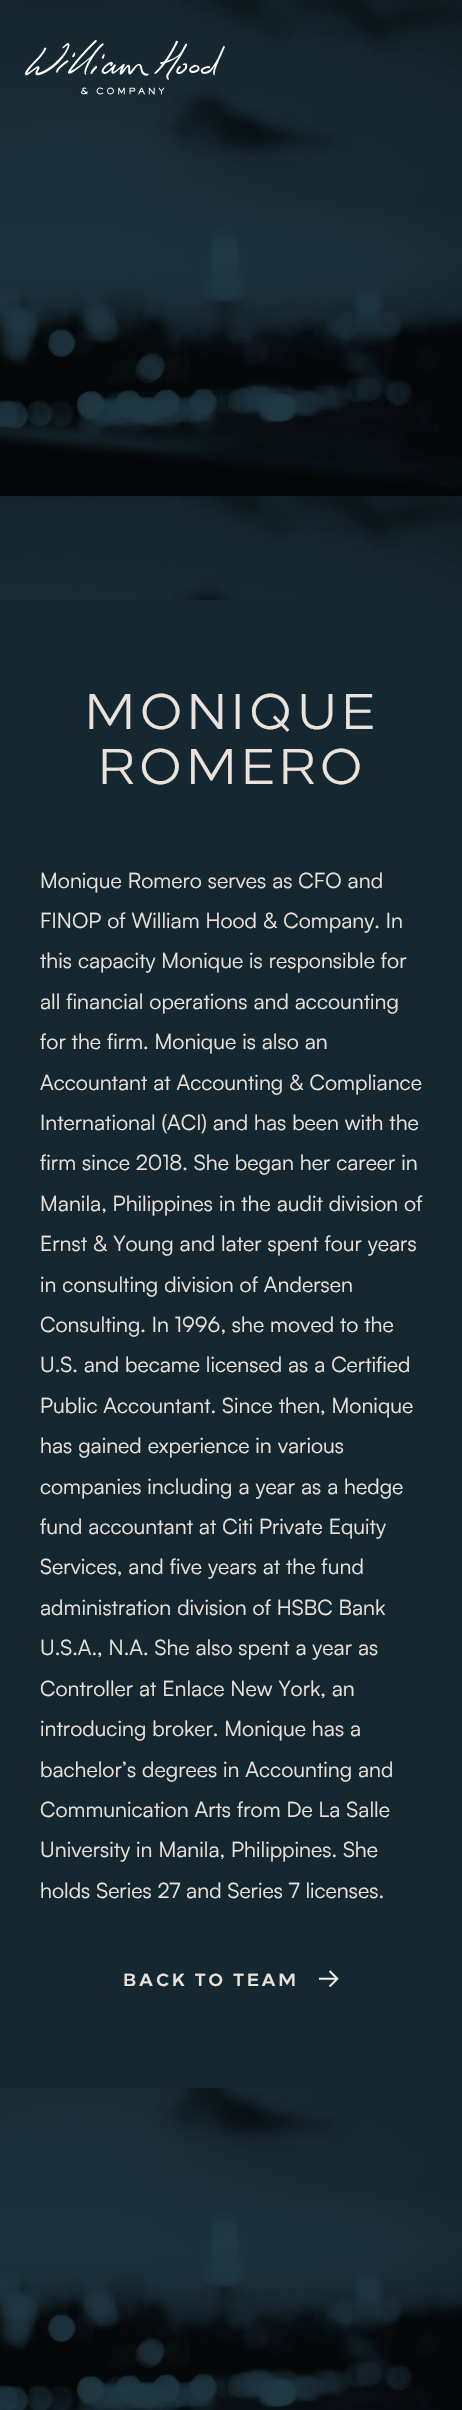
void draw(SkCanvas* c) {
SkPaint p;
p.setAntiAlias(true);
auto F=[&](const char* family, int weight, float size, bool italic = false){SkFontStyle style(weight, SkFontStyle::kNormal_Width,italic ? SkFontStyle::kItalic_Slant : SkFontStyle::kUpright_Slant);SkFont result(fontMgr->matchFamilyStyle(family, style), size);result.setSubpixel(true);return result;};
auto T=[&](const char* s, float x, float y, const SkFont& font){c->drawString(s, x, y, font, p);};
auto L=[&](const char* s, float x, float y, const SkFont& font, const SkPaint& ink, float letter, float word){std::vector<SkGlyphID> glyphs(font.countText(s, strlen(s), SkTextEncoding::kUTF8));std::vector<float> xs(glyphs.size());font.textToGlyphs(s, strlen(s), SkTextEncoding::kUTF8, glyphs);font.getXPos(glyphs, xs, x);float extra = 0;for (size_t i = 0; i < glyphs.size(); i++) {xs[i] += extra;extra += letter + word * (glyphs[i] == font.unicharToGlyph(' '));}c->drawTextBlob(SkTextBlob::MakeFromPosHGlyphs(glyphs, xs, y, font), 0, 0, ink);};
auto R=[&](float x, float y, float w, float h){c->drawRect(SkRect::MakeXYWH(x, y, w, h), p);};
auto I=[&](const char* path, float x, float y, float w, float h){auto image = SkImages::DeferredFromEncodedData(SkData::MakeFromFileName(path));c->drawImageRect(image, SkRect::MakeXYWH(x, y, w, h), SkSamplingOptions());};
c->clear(0xffffffff);
I("2.png",0,0,462,2410);
I("1.png",25,40,200,55);
p.setColor(0xff152731);
R(0,600,462,1488);
auto f1 = F("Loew",400,50);
p.setColor(0xffebe2db);
L("MONIQUE",84,729,f1,p,2.5,0);
L("ROMERO",97,784,f1,p,2.5,0);
auto f2 = F("Satoshi",400,21.25);
T("Monique Romero serves as CFO and",40,888,f2);
T("FINOP of William Hood & Company. In",40,928,f2);
T("this capacity Monique is responsible for",40,968,f2);
T("all financial operations and accounting",40,1009,f2);
T("for the firm. Monique is also an",40,1049,f2);
T("Accountant at Accounting & Compliance",40,1090,f2);
T("International (ACI) and has been with the",40,1130,f2);
T("firm since 2018. She began her career in",40,1170,f2);
T("Manila, Philippines in the audit division of",40,1211,f2);
T("Ernst & Young and later spent four years",40,1251,f2);
T("in consulting division of Andersen",40,1292,f2);
T("Consulting. In 1996, she moved to the",40,1332,f2);
T("U.S. and became licensed as a Certified",40,1372,f2);
T("Public Accountant. Since then, Monique",40,1413,f2);
T("has gained experience in various",40,1453,f2);
T("companies including a year as a hedge",40,1494,f2);
T("fund accountant at Citi Private Equity",40,1534,f2);
T("Services, and five years at the fund",40,1574,f2);
T("administration division of HSBC Bank",40,1615,f2);
T("U.S.A., N.A. She also spent a year as",40,1655,f2);
T("Controller at Enlace New York, an",40,1696,f2);
T("introducing broker. Monique has a",40,1736,f2);
T("bachelor’s degrees in Accounting and",40,1777,f2);
T("Communication Arts from De La Salle",40,1817,f2);
T("University in Manila, Philippines. She",40,1857,f2);
T("holds Series 27 and Series 7 licenses.",40,1898,f2);
auto f3 = F("Loew",700,17.5);
L("BACK TO TEAM",123,1986,f3,p,2.5,0);
I("3.png",319,1970,20,18);
}
